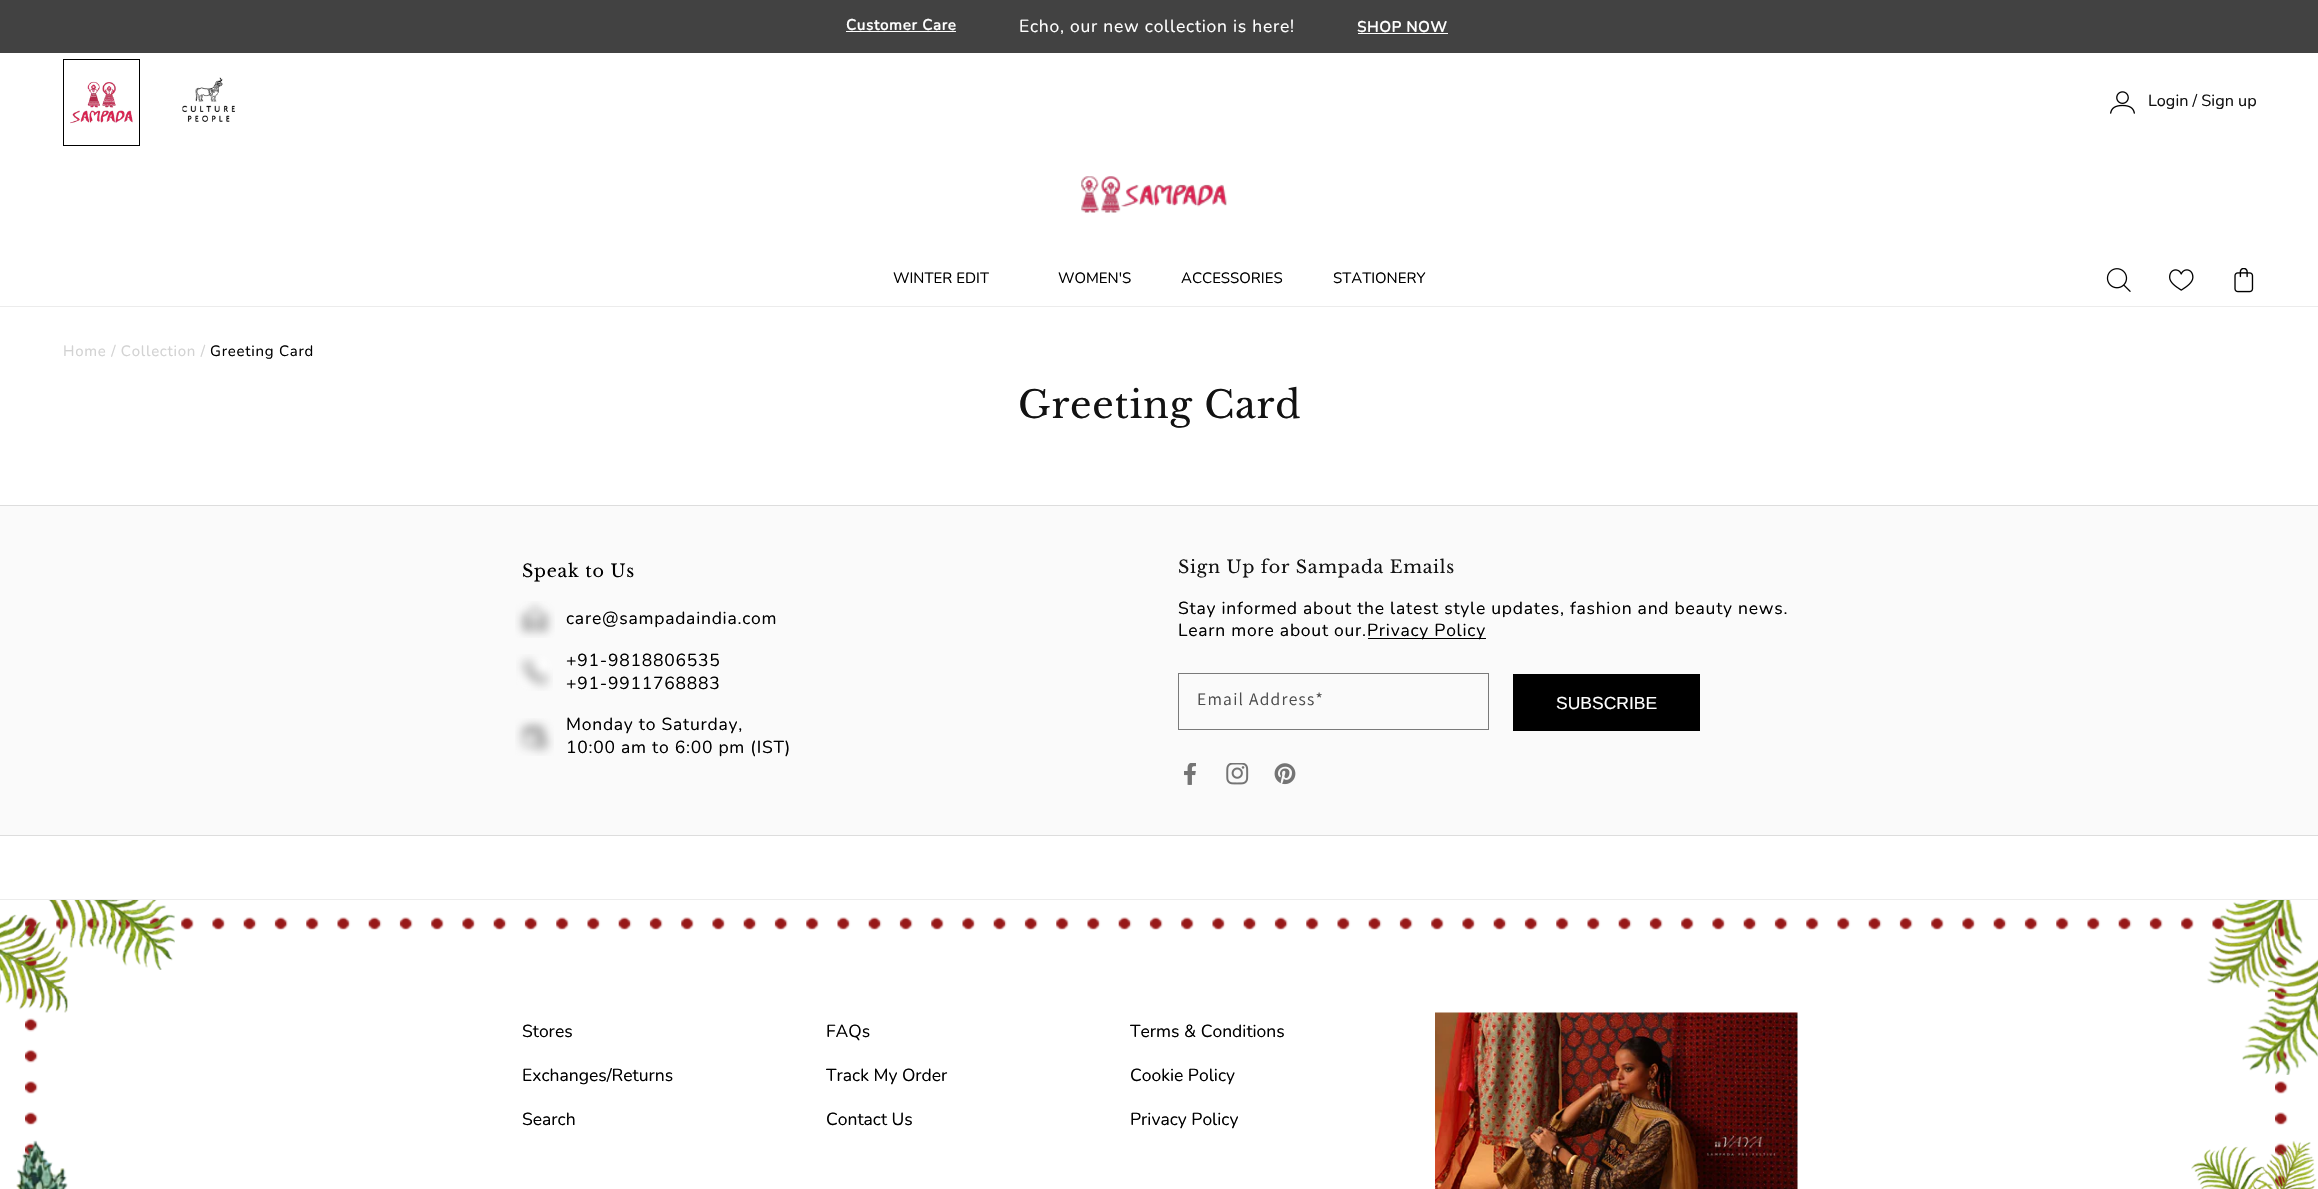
void draw(SkCanvas* c) {
SkPaint p;
p.setAntiAlias(true);
auto F=[&](const char* family, int weight, float size, bool italic = false){SkFontStyle style(weight, SkFontStyle::kNormal_Width,italic ? SkFontStyle::kItalic_Slant : SkFontStyle::kUpright_Slant);SkFont result(fontMgr->matchFamilyStyle(family, style), size);result.setSubpixel(true);return result;};
auto T=[&](const char* s, float x, float y, const SkFont& font){c->drawString(s, x, y, font, p);};
auto L=[&](const char* s, float x, float y, const SkFont& font, const SkPaint& ink, float letter, float word){std::vector<SkGlyphID> glyphs(font.countText(s, strlen(s), SkTextEncoding::kUTF8));std::vector<float> xs(glyphs.size());font.textToGlyphs(s, strlen(s), SkTextEncoding::kUTF8, glyphs);font.getXPos(glyphs, xs, x);float extra = 0;for (size_t i = 0; i < glyphs.size(); i++) {xs[i] += extra;extra += letter + word * (glyphs[i] == font.unicharToGlyph(' '));}c->drawTextBlob(SkTextBlob::MakeFromPosHGlyphs(glyphs, xs, y, font), 0, 0, ink);};
auto R=[&](float x, float y, float w, float h){c->drawRect(SkRect::MakeXYWH(x, y, w, h), p);};
auto I=[&](const char* path, float x, float y, float w, float h){auto image = SkImages::DeferredFromEncodedData(SkData::MakeFromFileName(path));c->drawImageRect(image, SkRect::MakeXYWH(x, y, w, h), SkSamplingOptions());};
c->clear(0xffffffff);
p.setColor(0xff424242);
R(0,0,2318,53);
auto f1 = F("Nunito",700,15);
p.setColor(0xffffffff);
L("Customer Care",846,30,f1,p,.75,0);
R(846,31,110,1);
auto f2 = F("Nunito",400,17.5);
L("Echo, our new collection is here!",1019,32,f2,p,.75,0);
L("SHOP NOW",1357,32,f1,p,.75,0);
R(1358,33,90,1);
p.setStroke(true);
p.setStrokeWidth(1);
p.setColor(0xff000000);
c->drawRect(SkRect::MakeXYWH(63.5,59.5,76,86),p);
I("1.png",70,81,63,43);
I("2.png",182,77,53,45);
I("3.png",2110,91,25,23);
auto f3 = F("Nunito",400,16.25);
p.setStroke(false);
p.setColor(0xff121212);
T("Login / Sign up",2148,106,f3);
p.setColor(0xffececec);
R(0,306,2318,1);
I("4.png",1081,176,146,37);
auto f4 = F("Nunito",400,15);
p.setColor(0xff000000);
T("WINTER EDIT",893,283,f4);
T("WOMEN'S",1058,283,f4);
T("ACCESSORIES",1181,283,f4);
T("STATIONERY",1333,283,f4);
I("5.png",2106,268,25,24);
I("6.png",2169,269,25,22);
I("7.png",2234,268,20,25);
p.setColor(0xffd2d2d2);
L("Home / Collection /",63,356,f4,p,.75,0);
p.setColor(0xff000000);
L("Greeting Card",210,356,f4,p,.75,0);
auto f5 = F("Libre Baskerville",400,37.5);
p.setColor(0xff121212);
L("Greeting Card",1018,418,f5,p,.75,0);
p.setColor(0xfffafafa);
R(0,506,2318,329);
p.setColor(0xffdddddd);
R(0,505,2318,1);
R(0,835,2318,1);
auto f6 = F("Libre Baskerville",400,17.5);
p.setColor(0xff000000);
L("Speak to Us",522,577,f6,p,.75,0);
I("8.png",515,601,40,37);
L("care@sampadaindia.com",566,624,f2,p,.75,0);
I("9.png",516,654,37,37);
L("+91-9818806535",566,666,f2,p,.75,0);
L("+91-9911768883",566,689,f2,p,.75,0);
I("10.png",515,718,39,38);
L("Monday to Saturday,",566,730,f2,p,.75,0);
L("10:00 am to 6:00 pm (IST)",566,753,f2,p,.75,0);
p.setColor(0xff121212);
L("Sign Up for Sampada Emails",1178,573,f6,p,.75,0);
p.setColor(0xff000000);
L("Stay informed about the latest style updates, fashion and beauty news.",1178,614,f2,p,.75,0);
L("Learn more about our.",1178,636,f2,p,.75,0);
R(1368,638,118,1);
L("Privacy Policy",1367,636,f2,p,.75,0);
p.setStroke(true);
p.setColor(0xff7a7a7a);
c->drawRect(SkRect::MakeXYWH(1178.5,673.5,310,56),p);
auto f7 = F("Assistant",400,17.5);
p.setStroke(false);
p.setColor(0xff4c4c4c);
L("Email Address*",1197,705,f7,p,1.25,0);
p.setColor(0xff000000);
R(1513,674,187,57);
auto f8 = F("Liberation Sans",400,17.5);
p.setColor(0xffffffff);
T("SUBSCRIBE",1556,709,f8);
I("11.png",1184,763,12,22);
I("12.png",1226,763,23,22);
I("13.png",1274,763,22,22);
p.setColor(0xffececec);
R(0,899,2318,1);
I("17.png",25,925,13,232);
I("18.png",2275,925,13,263);
I("16.png",25,917,2263,13);
I("14.png",0,900,175,113);
I("15.png",2207,900,111,175);
I("19.png",16,1140,52,49);
I("20.png",2191,1140,126,49);
p.setColor(0xff000000);
T("Stores",522,1037,f2);
T("Exchanges/Returns",522,1081,f2);
T("Search",522,1125,f2);
T("FAQs",826,1037,f2);
T("Track My Order",826,1081,f2);
T("Contact Us",826,1125,f2);
T("Terms & Conditions",1130,1037,f2);
T("Cookie Policy",1130,1081,f2);
T("Privacy Policy",1130,1125,f2);
I("21.png",1435,1012,363,177);
}
